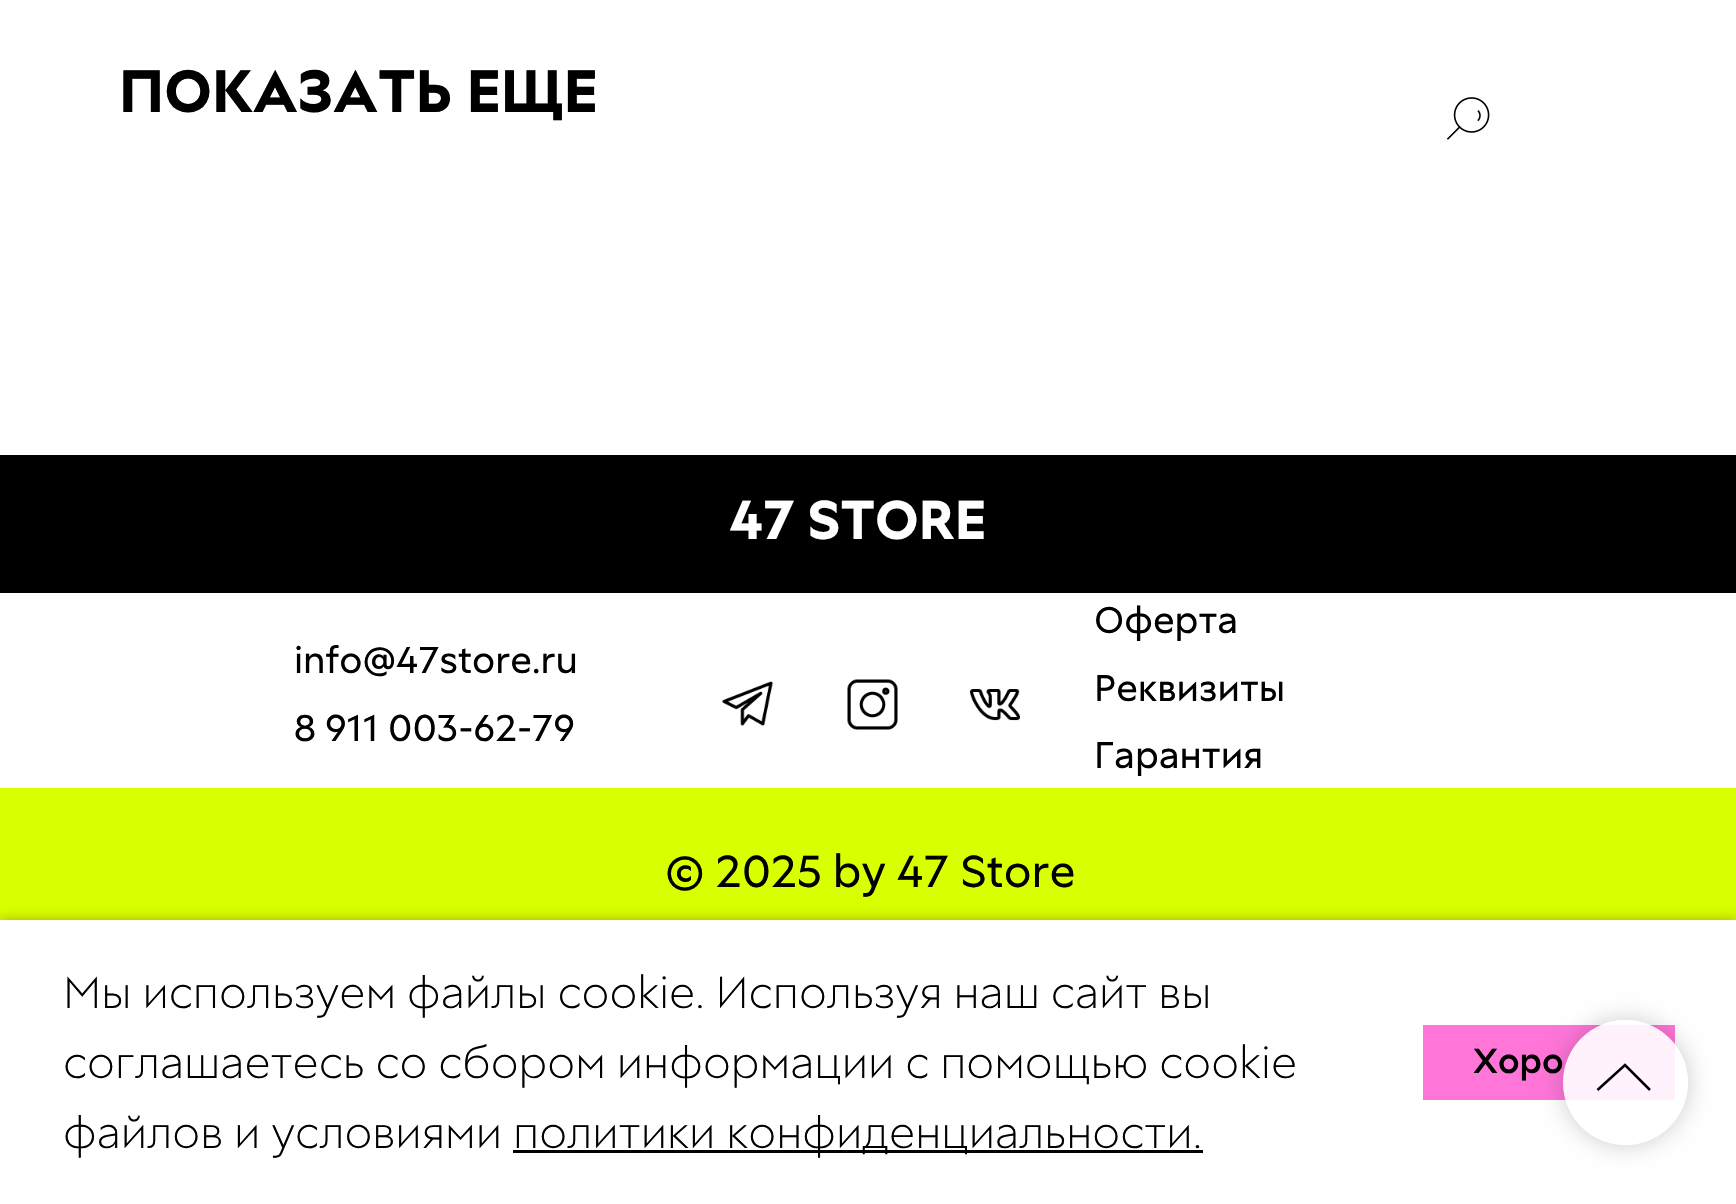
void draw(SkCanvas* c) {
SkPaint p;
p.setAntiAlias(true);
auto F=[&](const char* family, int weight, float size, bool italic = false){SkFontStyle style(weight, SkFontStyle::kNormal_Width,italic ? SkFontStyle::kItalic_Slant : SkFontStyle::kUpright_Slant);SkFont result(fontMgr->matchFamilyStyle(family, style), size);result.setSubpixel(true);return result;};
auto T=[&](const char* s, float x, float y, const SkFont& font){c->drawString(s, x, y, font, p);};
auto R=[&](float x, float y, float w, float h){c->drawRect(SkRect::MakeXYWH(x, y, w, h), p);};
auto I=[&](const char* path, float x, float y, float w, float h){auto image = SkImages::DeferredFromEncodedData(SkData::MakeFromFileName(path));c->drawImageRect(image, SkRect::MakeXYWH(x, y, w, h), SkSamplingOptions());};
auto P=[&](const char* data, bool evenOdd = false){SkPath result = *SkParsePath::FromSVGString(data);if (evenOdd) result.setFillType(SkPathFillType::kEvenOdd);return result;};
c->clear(0xffffffff);
auto f1 = F("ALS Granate",700,60);
p.setColor(0xff000000);
T("ПОКАЗАТЬ ЕЩЕ",119,112,f1);
R(0,455,1736,138);
auto f2 = F("ALS Granate",700,55);
p.setColor(0xffffffff);
T("47 STORE",729,539,f2);
auto f3 = F("ALS Granate",400,37.5);
p.setColor(0xff000000);
T("info@47store.ru",294,673,f3);
T("Оферта",1094,633,f3);
T("Реквизиты",1094,701,f3);
T("Гарантия",1094,768,f3);
I("1.png",722,681,51,45);
I("2.png",847,679,51,51);
I("3.png",970,689,50,32);
T("8 911 003-62-79",294,741,f3);
p.setColor(0xffd9ff00);
R(0,788,1736,132);
auto f4 = F("ALS Granate",400,45);
p.setColor(0xff000000);
T("© 2025 by 47 Store",665,887,f4);
I("4.png",1446,97,44,43);
p.setColor(0x4d000000);
p.setMaskFilter(SkMaskFilter::MakeBlur(kNormal_SkBlurStyle, 6));
c->drawRect(SkRect::MakeXYWH(0,920,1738,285),p);
p.setMaskFilter(nullptr);
p.setColor(0xffffffff);
R(0,920,1736,284);
auto f5 = F("ALS Granate",300,45);
p.setColor(0xff000000);
T("Мы используем файлы cookie. Используя наш сайт вы",63,1008,f5);
T("соглашаетесь со сбором информации с помощью cookie",63,1078,f5);
T("файлов и условиями",63,1148,f5);
R(513,1150,690,3);
T("политики конфиденциальности.",513,1148,f5);
p.setColor(0xffff75d8);
R(1423,1025,252,75);
auto f6 = F("ALS Granate",500,35);
p.setColor(0xff000000);
T("Хоро",1473,1073,f6);
c->save();
c->clipPath(P("M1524 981h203v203h-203zm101.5 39c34.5 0 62.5 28 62.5 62.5c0 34.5-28 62.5-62.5 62.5c-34.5 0-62.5-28-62.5-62.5c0-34.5 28-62.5 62.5-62.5z",true),true);
p.setColor(0x33000000);
p.setMaskFilter(SkMaskFilter::MakeBlur(kNormal_SkBlurStyle, 12.5));
c->drawRoundRect(SkRect::MakeXYWH(1563,1020,125,125),62.5,62.5,p);
p.setMaskFilter(nullptr);
c->restore();
p.setColor(0xe6ffffff);
c->drawCircle(1625.5,1082.5,62.5,p);
p.setStroke(true);
p.setStrokeWidth(2.5);
p.setColor(0xff000000);
c->drawPath(P("M1597.5 1090l27.5-25l25 25"),p);
}
